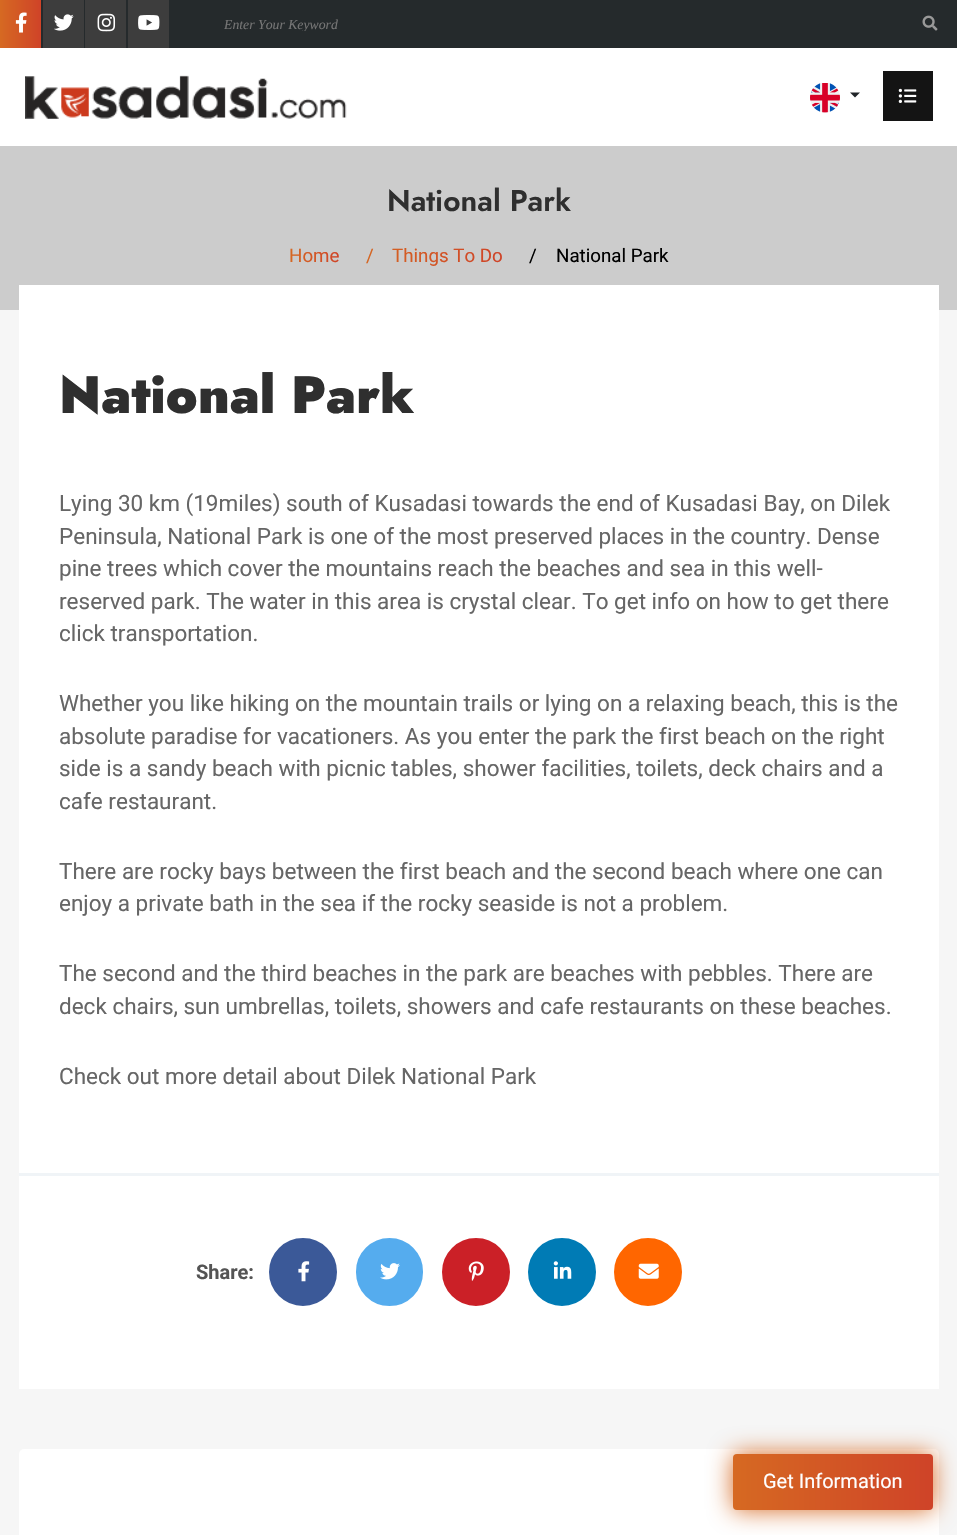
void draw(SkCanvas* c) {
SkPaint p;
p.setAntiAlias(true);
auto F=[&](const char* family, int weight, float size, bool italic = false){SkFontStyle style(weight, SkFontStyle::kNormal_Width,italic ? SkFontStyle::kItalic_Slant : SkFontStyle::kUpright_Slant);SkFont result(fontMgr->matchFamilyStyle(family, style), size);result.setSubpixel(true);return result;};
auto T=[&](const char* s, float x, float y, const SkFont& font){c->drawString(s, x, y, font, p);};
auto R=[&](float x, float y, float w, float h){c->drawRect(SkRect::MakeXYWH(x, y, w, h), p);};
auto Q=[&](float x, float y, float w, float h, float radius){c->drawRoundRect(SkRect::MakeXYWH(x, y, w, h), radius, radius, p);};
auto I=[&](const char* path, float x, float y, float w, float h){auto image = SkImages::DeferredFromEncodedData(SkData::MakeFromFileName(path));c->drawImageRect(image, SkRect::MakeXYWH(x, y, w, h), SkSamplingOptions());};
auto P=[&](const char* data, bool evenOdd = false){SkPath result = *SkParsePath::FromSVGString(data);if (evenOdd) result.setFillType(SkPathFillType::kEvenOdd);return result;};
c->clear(0xffffffff);
p.setColor(0xff252a2c);
R(41,0,916,48);
{
const SkColor colors[] = {0xffd66922,0xffcf4328};
const float stops[] = {0,1};
const SkPoint ends[] = {{0,24}, {41,24}};
p.setShader(SkGradientShader::MakeLinear(ends, colors, stops, 2, SkTileMode::kClamp));
p.setAlpha(255);
}
R(0,0,41,48);
I("1.png",15,12,12,21);
p.setShader(nullptr);
p.setColor(0xff3d3d3d);
R(43,0,41,48);
I("2.png",54,14,20,17);
R(85,0,41,48);
I("3.png",97,13,19,19);
R(128,0,41,48);
I("4.png",138,15,22,15);
c->save();
c->clipRect(SkRect::MakeXYWH(224,16,679,15));
auto f1 = F("Liberation Serif",400,13.75,true);
p.setColor(0xff757575);
T("Enter Your Keyword",224,29,f1);
c->restore();
I("5.png",922,15,16,16);
I("6.png",25,75,322,44);
I("7.png",810,83,30,30);
p.setColor(0xff212529);
c->drawPath(P("M850 92.5h10l-5 5z"),p);
p.setColor(0xff141414);
R(883,71,50,50);
I("8.png",898,88,19,15);
p.setColor(0xffcccccc);
R(0,146,957,164);
auto f2 = F("Jost",600,30);
p.setColor(0xff2f2f2f);
T("National Park",387,211,f2);
auto f3 = F("Roboto",400,18.75);
{
const SkColor colors[] = {0xffd66922,0xffcf4328};
const float stops[] = {0,1};
const SkPoint ends[] = {{289,256}, {340,256}};
p.setShader(SkGradientShader::MakeLinear(ends, colors, stops, 2, SkTileMode::kClamp));
p.setAlpha(255);
}
T("Home",289,262,f3);
{
const SkColor colors[] = {0xffd66922,0xffcf4328};
const float stops[] = {0,1};
const SkPoint ends[] = {{356,256}, {503,256}};
p.setShader(SkGradientShader::MakeLinear(ends, colors, stops, 2, SkTileMode::kClamp));
p.setAlpha(255);
}
T("/",366,262,f3);
T("Things To Do",392,262,f3);
p.setShader(nullptr);
p.setColor(0xff000000);
T("/",529,262,f3);
T("National Park",556,262,f3);
p.setColor(0xfff6f6f6);
R(0,310,957,1225);
p.setColor(0xffffffff);
R(19,285,920,1104);
auto f4 = F("Jost",900,52.5);
p.setColor(0xff2f2f2f);
T("National Park",59,413,f4);
auto f5 = F("Roboto",400,22.5);
p.setColor(0xff666666);
T("Lying 30 km (19miles) south of Kusadasi towards the end of Kusadasi Bay, on Dilek",59,511,f5);
T("Peninsula, National Park is one of the most preserved places in the country. Dense",59,544,f5);
T("pine trees which cover the mountains reach the beaches and sea in this well-",59,576,f5);
T("reserved park. The water in this area is crystal clear. To get info on how to get there",59,609,f5);
T("click transportation.",59,641,f5);
T("Whether you like hiking on the mountain trails or lying on a relaxing beach, this is the",59,711,f5);
T("absolute paradise for vacationers. As you enter the park the first beach on the right",59,744,f5);
T("side is a sandy beach with picnic tables, shower facilities, toilets, deck chairs and a",59,776,f5);
T("cafe restaurant.",59,809,f5);
T("There are rocky bays between the first beach and the second beach where one can",59,879,f5);
T("enjoy a private bath in the sea if the rocky seaside is not a problem.",59,911,f5);
T("The second and the third beaches in the park are beaches with pebbles. There are",59,981,f5);
T("deck chairs, sun umbrellas, toilets, showers and cafe restaurants on these beaches.",59,1014,f5);
T("Check out more detail about Dilek National Park",59,1084,f5);
p.setColor(0xfff0f4f7);
R(19,1173,920,3);
auto f6 = F("Roboto",700,20);
p.setColor(0xff545454);
T("Share:",196,1279,f6);
p.setColor(0xff3b5998);
c->drawCircle(303,1272,35.5,p);
p.setStroke(true);
p.setStrokeWidth(3);
p.setColor(0xffffffff);
c->drawCircle(303,1272,35.5,p);
I("9.png",298,1261,12,21);
p.setStroke(false);
p.setColor(0xff55acee);
c->drawRoundRect(SkRect::MakeXYWH(354.5,1236.5,70,71),35,35,p);
p.setStroke(true);
p.setColor(0xffffffff);
c->drawRoundRect(SkRect::MakeXYWH(354.5,1236.5,70,71),35,35,p);
I("10.png",380,1263,20,17);
p.setStroke(false);
p.setColor(0xffcb2027);
c->drawCircle(476,1272,35.5,p);
p.setStroke(true);
p.setColor(0xffffffff);
c->drawCircle(476,1272,35.5,p);
I("11.png",468,1261,16,20);
p.setStroke(false);
p.setColor(0xff007bb5);
c->drawCircle(562,1272,35.5,p);
p.setStroke(true);
p.setColor(0xffffffff);
c->drawCircle(562,1272,35.5,p);
I("12.png",553,1261,19,18);
p.setStroke(false);
p.setColor(0xffff6600);
c->drawCircle(648,1272,35.5,p);
p.setStroke(true);
p.setColor(0xffffffff);
c->drawCircle(648,1272,35.5,p);
I("13.png",638,1263,21,16);
p.setStroke(false);
Q(19,1449,920,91,5);
p.setColor(0xffd66922);
p.setMaskFilter(SkMaskFilter::MakeBlur(kNormal_SkBlurStyle, 12.5));
c->drawRoundRect(SkRect::MakeXYWH(733,1454,200,56),4,4,p);
p.setMaskFilter(nullptr);
{
const SkColor colors[] = {0xffd66922,0xffcf4328};
const float stops[] = {0,1};
const SkPoint ends[] = {{733,1454}, {933,1454}};
p.setShader(SkGradientShader::MakeLinear(ends, colors, stops, 2, SkTileMode::kClamp));
p.setAlpha(255);
}
Q(733,1454,200,56,4);
auto f7 = F("Roboto",400,20);
p.setShader(nullptr);
p.setColor(0xffffffff);
T("Get Information",763,1488,f7);
}
